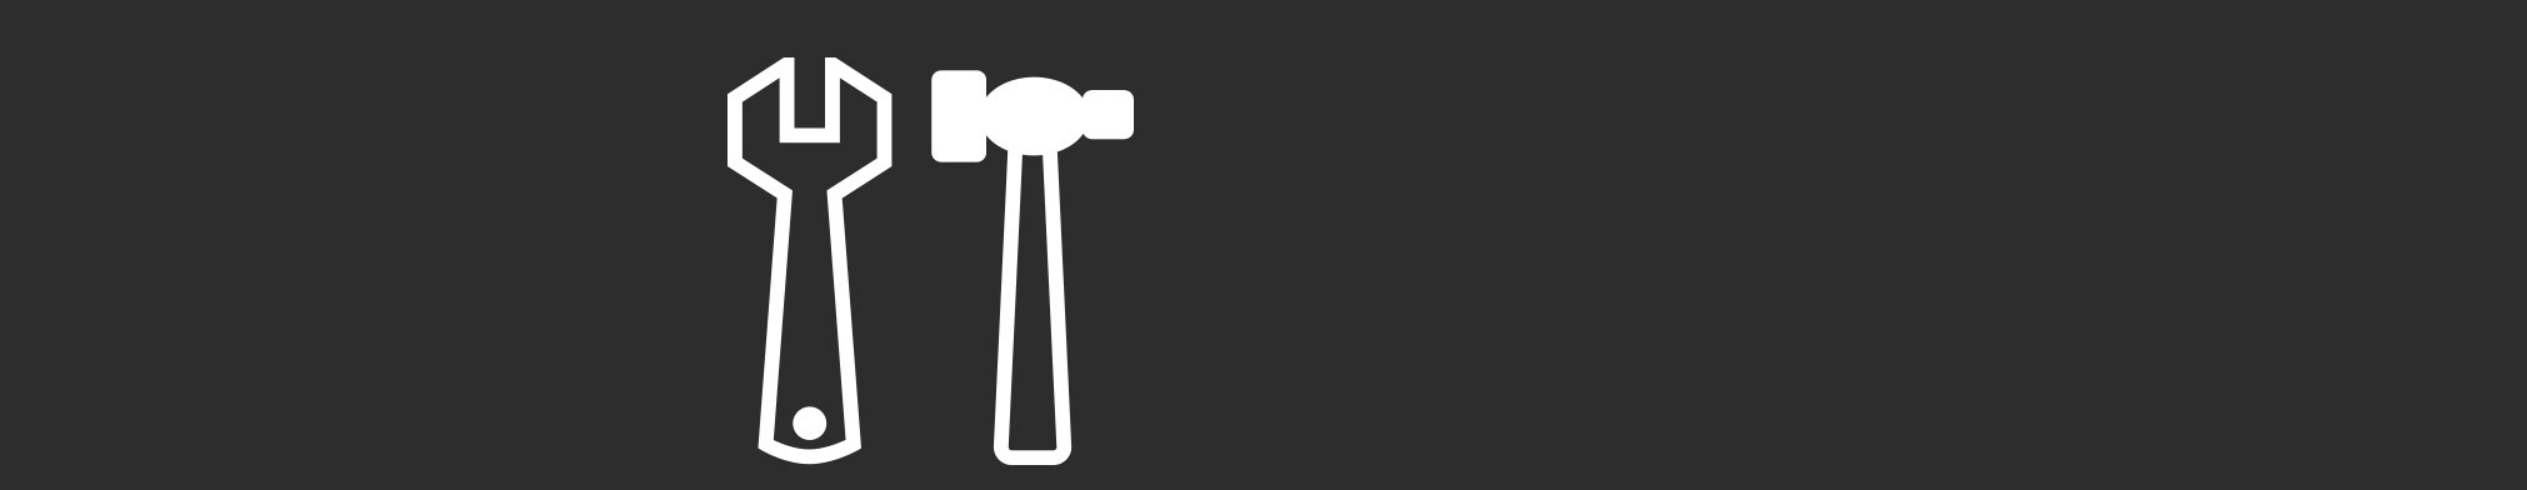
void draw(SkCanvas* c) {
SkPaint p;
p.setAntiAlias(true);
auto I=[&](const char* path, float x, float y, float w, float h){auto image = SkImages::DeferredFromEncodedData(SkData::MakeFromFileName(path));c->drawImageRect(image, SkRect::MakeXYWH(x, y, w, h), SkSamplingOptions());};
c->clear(0xff2d2d2d);
I("1.png",719,50,420,420);
}
